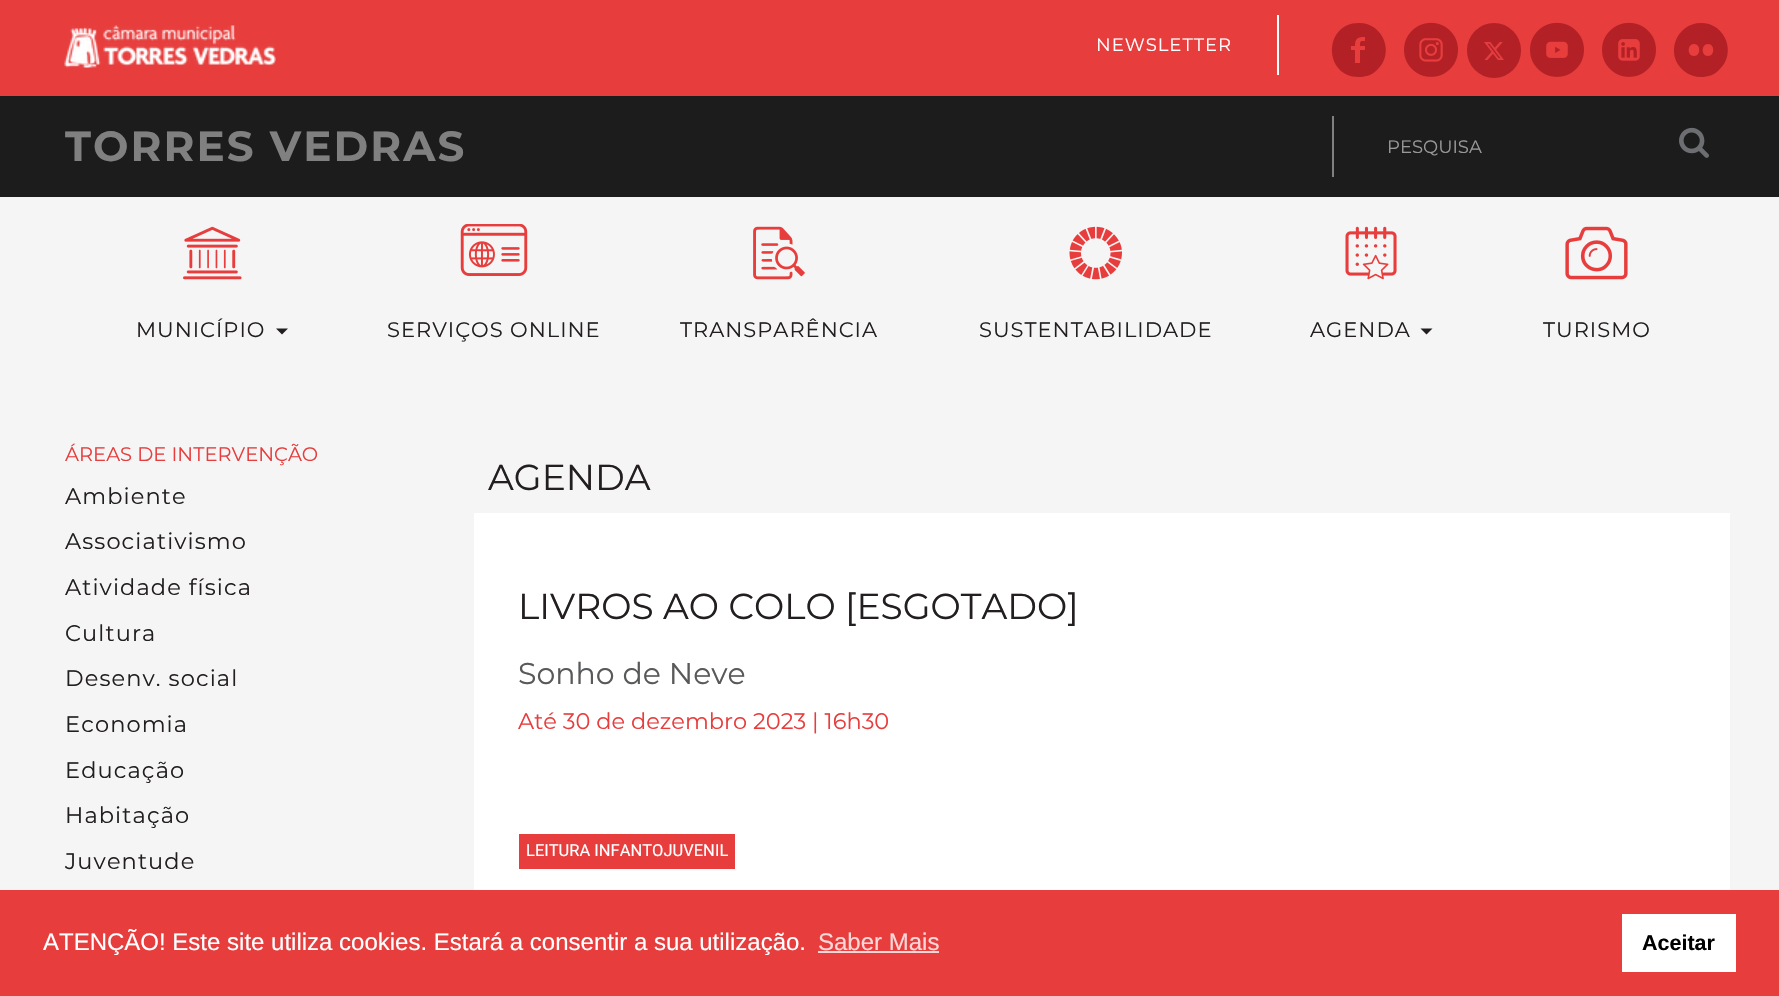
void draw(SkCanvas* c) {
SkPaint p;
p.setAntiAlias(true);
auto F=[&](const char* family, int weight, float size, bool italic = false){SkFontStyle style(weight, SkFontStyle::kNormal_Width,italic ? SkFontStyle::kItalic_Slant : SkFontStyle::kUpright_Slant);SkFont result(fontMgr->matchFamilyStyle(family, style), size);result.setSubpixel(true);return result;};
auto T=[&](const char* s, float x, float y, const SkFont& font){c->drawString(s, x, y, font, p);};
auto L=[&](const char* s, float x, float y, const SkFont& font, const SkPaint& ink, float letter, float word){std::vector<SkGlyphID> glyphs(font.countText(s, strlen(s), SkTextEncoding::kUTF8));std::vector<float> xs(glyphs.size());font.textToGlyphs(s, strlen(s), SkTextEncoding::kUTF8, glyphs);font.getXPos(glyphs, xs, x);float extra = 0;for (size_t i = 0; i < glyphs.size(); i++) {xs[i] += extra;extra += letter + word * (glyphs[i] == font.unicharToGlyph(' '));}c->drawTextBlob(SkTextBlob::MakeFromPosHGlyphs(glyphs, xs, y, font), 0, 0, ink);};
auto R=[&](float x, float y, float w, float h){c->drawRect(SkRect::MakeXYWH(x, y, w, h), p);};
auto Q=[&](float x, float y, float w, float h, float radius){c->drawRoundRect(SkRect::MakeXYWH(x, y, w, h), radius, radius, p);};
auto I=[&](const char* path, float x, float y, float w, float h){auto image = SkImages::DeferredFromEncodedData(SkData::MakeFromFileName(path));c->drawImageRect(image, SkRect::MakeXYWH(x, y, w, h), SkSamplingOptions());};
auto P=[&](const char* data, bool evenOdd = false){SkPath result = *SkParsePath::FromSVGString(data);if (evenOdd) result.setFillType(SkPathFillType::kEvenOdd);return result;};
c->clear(0xfff5f5f5);
p.setColor(0xffe73d3d);
R(0,0,1779,96);
I("1.png",64,25,212,43);
p.setColor(0xffffffff);
R(1277,15,2,60);
auto f1 = F("Montserrat",400,18);
L("NEWSLETTER",1096,51,f1,p,1,0);
p.setColor(0xffb32026);
c->drawPath(P("M1359 23c25 0 36 31 18 47c-5 5-11 7-18 7c-36 0-36-54 0-54zm6 18v-4c-7 0-10 1-10 9h-4v4h4v13h5v-13h5v-4h-5c0-5 0-5 5-5z"),p);
I("2.png",1404,22,54,55);
Q(1467,23,54,55,27);
I("3.png",1484,42,20,18);
I("4.png",1530,22,54,55);
I("5.png",1602,22,54,55);
c->drawPath(P("M1701 23c25 0 36 31 18 47c-5 5-11 7-18 7c-6 0-12-2-17-6c-20-16-8-48 17-48zm-7 33c7 0 7-12 0-12c-7 0-7 12 0 12zm14 0c7 0 7-12 0-12c-7 0-7 12 0 12z"),p);
p.setColor(0xff1c1c1c);
R(0,96,1779,101);
auto f2 = F("Montserrat",700,42);
p.setColor(0xff808080);
L("TORRES VEDRAS",65,161,f2,p,2.1,0);
R(1332,116,2,61);
p.setColor(0xff999999);
T("PESQUISA",1387,153,f1);
I("6.png",1679,127,30,31);
I("7.png",183,226,59,54);
auto f3 = F("Montserrat",400,21);
p.setColor(0xff231f20);
L("MUNICÍPIO",136,337,f3,p,1,0);
c->drawPath(P("M276 328.5h12l-6 6z"),p);
I("8.png",460,224,68,52);
L("SERVIÇOS ONLINE",387,337,f3,p,1,0);
I("9.png",753,226,52,54);
L("TRANSPARÊNCIA",680,337,f3,p,1,0);
I("10.png",1069,226,53,54);
L("SUSTENTABILIDADE",979,337,f3,p,1,0);
I("11.png",1345,226,52,54);
L("AGENDA",1310,337,f3,p,1,0);
c->drawPath(P("M1420.5 328.5h12l-6 6z"),p);
I("12.png",1565,226,63,54);
L("TURISMO",1543,337,f3,p,1,0);
auto f4 = F("Montserrat",400,19.5);
p.setColor(0xffe73d3d);
T("ÁREAS DE INTERVENÇÃO",65,461,f4);
auto f5 = F("Montserrat",400,22.5);
p.setColor(0xff231f20);
L("Ambiente",65,504,f5,p,1.1,0);
L("Associativismo",65,549,f5,p,1.1,0);
L("Atividade física",65,595,f5,p,1.1,0);
L("Cultura",65,641,f5,p,1.1,0);
L("Desenv. social",65,686,f5,p,1.1,0);
L("Economia",65,732,f5,p,1.1,0);
L("Educação",65,778,f5,p,1.1,0);
L("Habitação",65,823,f5,p,1.1,0);
L("Juventude",65,869,f5,p,1.1,0);
auto f6 = F("Montserrat",400,36);
T("AGENDA",488,490,f6);
p.setColor(0xffffffff);
R(474,513,1256,377);
p.setColor(0xff231f20);
T("LIVROS AO COLO [ESGOTADO]",518,619,f6);
auto f7 = F("Montserrat",400,30);
p.setColor(0xff58595b);
T("Sonho de Neve",518,684,f7);
p.setColor(0xffe73d3d);
T("Até 30 de dezembro 2023 | 16h30",518,729,f5);
R(519,834,216,35);
auto f8 = F("Roboto",400,16.5);
p.setColor(0xffffffff);
T("LEITURA INFANTOJUVENIL",526,856,f8);
p.setColor(0xffe73d3d);
R(0,890,1779,106);
auto f9 = F("Liberation Sans",400,24);
p.setColor(0xffffffff);
T("ATENÇÃO! Este site utiliza cookies. Estará a consentir a sua utilização.",43,950,f9);
p.setColor(0xfffad8d8);
T("Saber Mais",818,950,f9);
R(818,951,121,2);
p.setColor(0xffffffff);
R(1622,914,114,58);
auto f10 = F("Liberation Sans",700,21.5);
p.setColor(0xff000000);
T("Aceitar",1642,950,f10);
}
